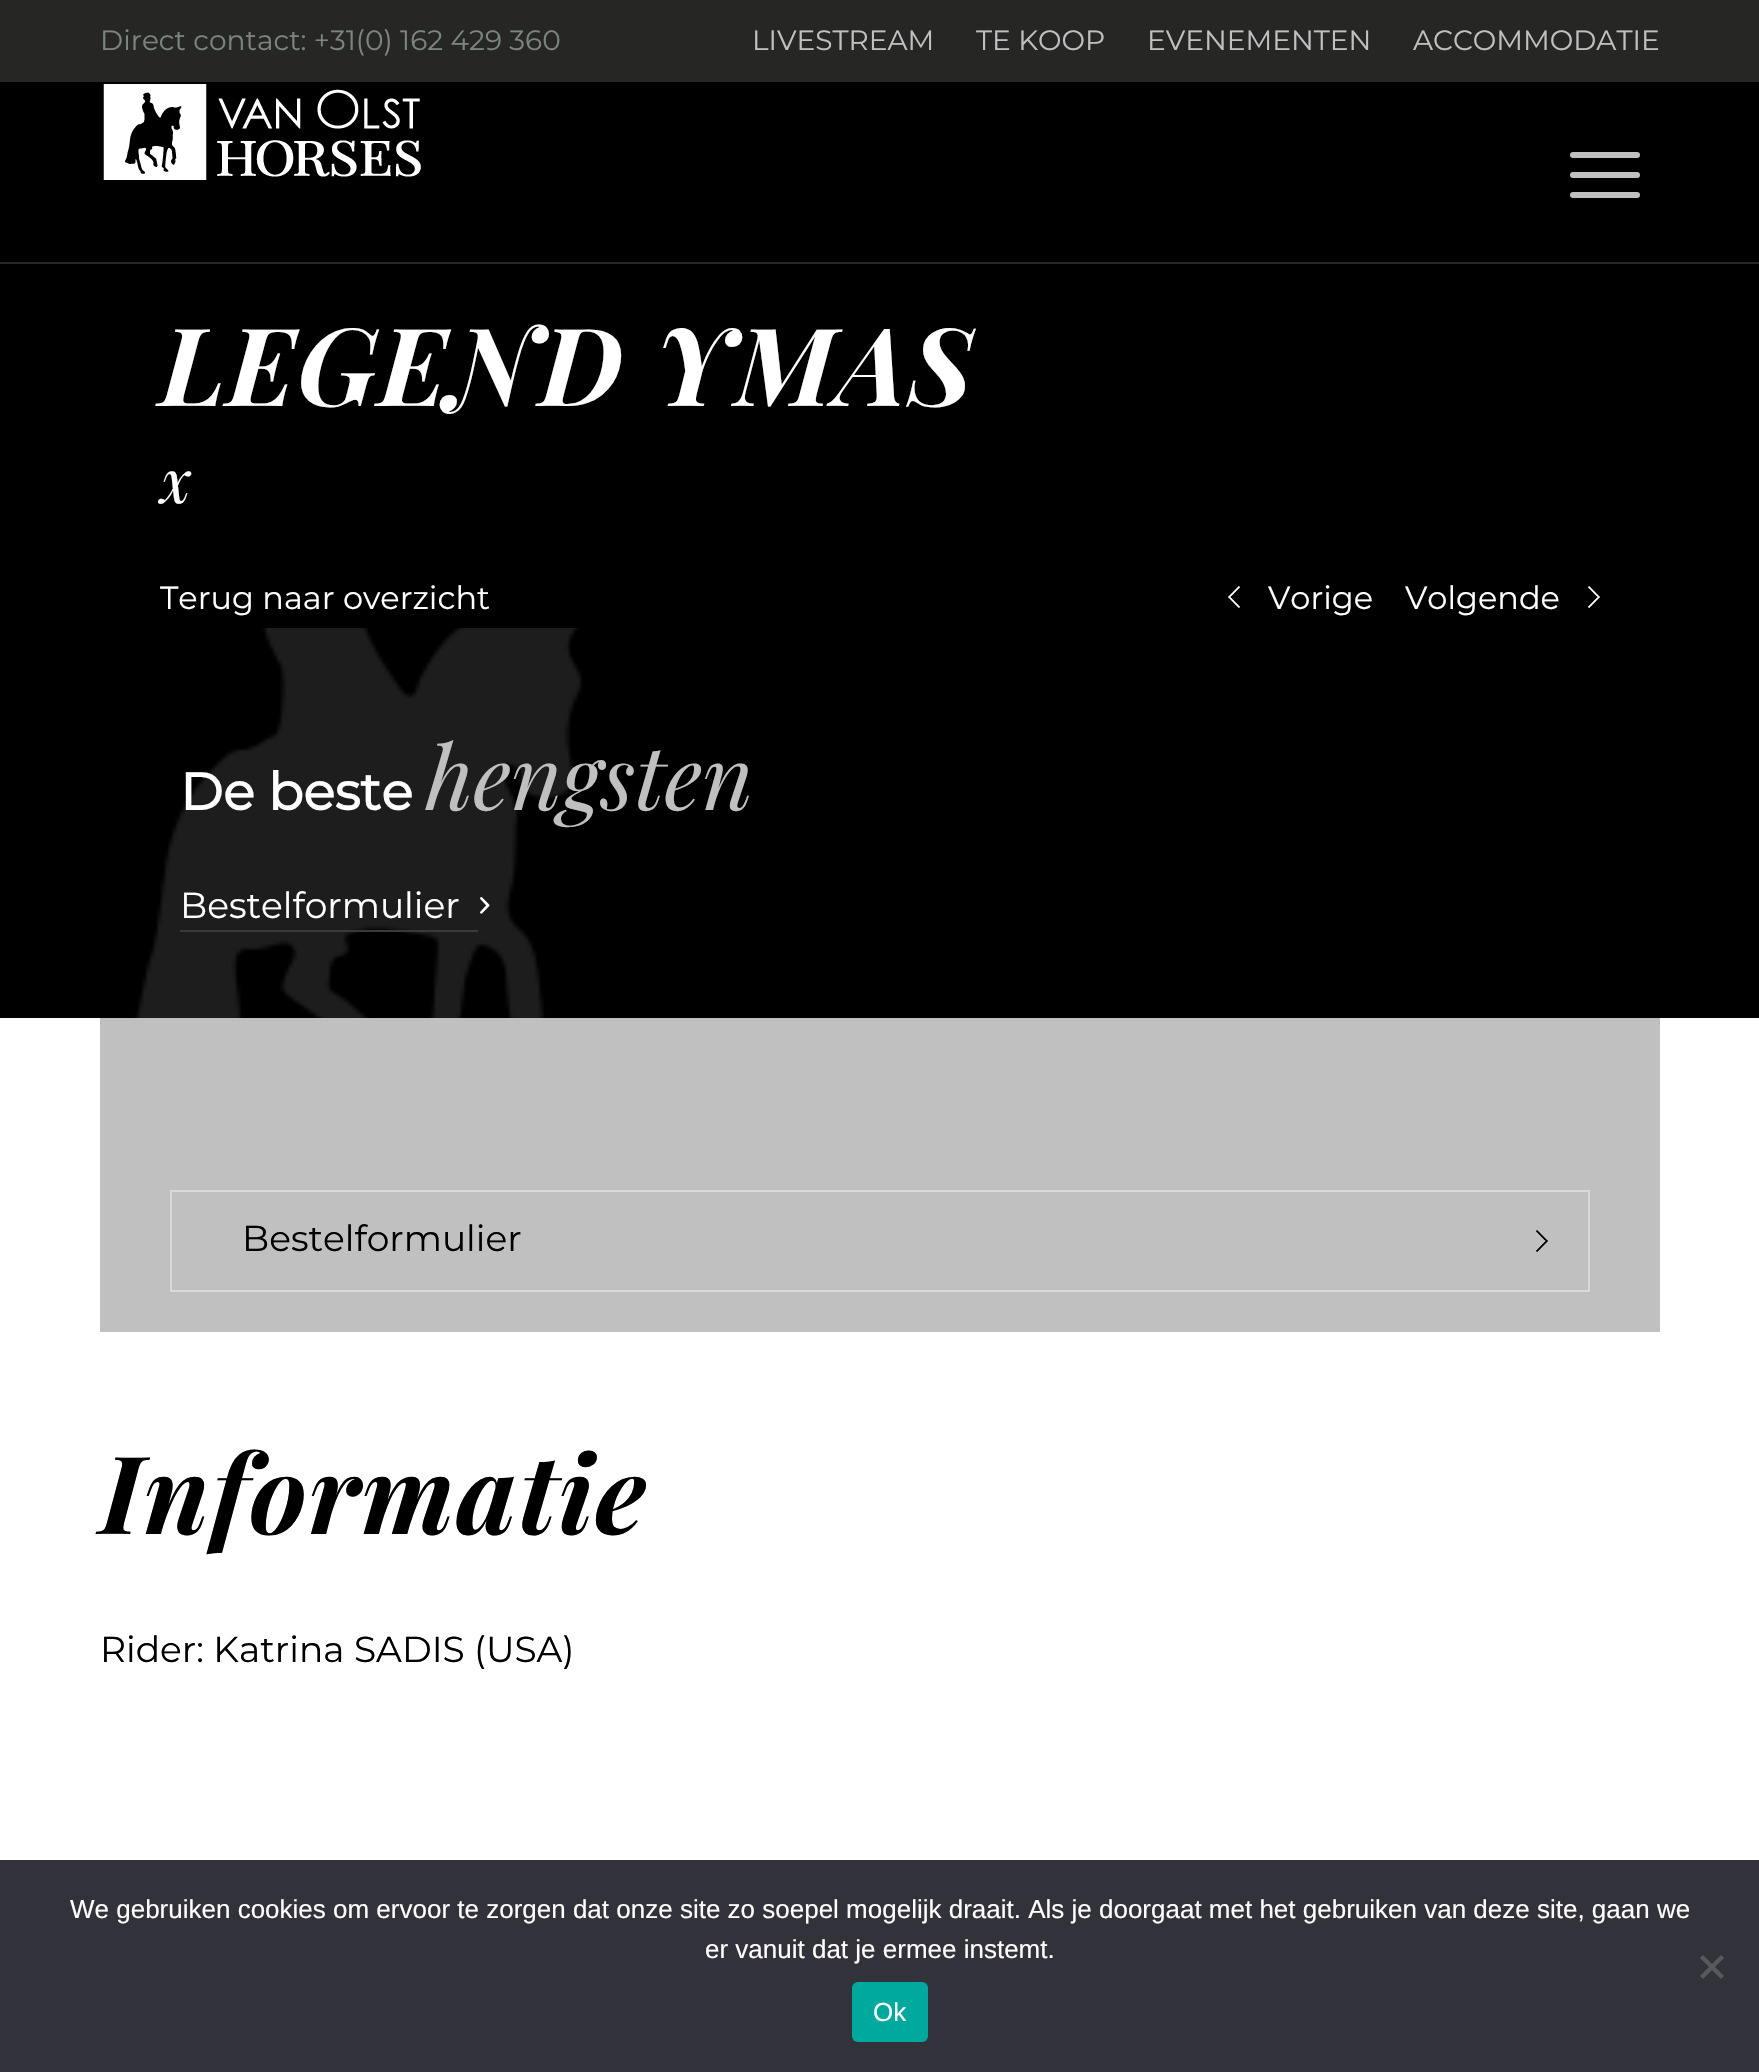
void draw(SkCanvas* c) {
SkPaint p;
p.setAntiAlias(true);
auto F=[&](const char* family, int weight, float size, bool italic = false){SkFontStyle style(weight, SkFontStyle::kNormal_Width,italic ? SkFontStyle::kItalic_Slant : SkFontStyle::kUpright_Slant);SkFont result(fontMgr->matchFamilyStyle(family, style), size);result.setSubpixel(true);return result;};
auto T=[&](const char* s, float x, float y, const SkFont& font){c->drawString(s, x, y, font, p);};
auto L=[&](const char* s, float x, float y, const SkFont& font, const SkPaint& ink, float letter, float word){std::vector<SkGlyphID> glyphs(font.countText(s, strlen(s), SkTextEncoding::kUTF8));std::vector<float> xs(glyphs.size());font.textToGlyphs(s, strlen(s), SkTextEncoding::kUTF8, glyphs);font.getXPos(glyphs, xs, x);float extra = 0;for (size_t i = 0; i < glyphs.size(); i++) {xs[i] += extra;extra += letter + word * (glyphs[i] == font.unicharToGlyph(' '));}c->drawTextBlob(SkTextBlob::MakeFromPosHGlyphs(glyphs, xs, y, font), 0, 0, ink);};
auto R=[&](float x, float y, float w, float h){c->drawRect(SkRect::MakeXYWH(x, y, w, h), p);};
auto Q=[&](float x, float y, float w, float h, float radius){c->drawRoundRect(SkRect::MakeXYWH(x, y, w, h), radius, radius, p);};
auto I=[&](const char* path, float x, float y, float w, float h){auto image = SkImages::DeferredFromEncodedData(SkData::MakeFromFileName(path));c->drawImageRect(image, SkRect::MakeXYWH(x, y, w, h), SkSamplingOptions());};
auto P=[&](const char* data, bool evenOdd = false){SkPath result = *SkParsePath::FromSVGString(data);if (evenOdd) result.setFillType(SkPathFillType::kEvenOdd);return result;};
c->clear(0xff000000);
p.setColor(0xff262625);
R(0,0,1759,82);
auto f1 = F("Montserrat",100,28);
p.setColor(0xff7b8580);
T("Direct contact: +31(0) 162 429 360",100,50,f1);
p.setColor(0xffc0c0c0);
T("LIVESTREAM",752,50,f1);
T("TE KOOP",976,50,f1);
T("EVENEMENTEN",1147,50,f1);
T("ACCOMMODATIE",1413,50,f1);
p.setColor(0xff262626);
R(0,262,1759,2);
I("1.png",103,84,318,96);
p.setColor(0xffc0c0c0);
Q(1570,172,70,6,3);
Q(1570,152,70,6,3);
Q(1570,192,70,6,3);
auto f2 = F("Playfair Display",700,108,true);
p.setColor(0xffffffff);
L("LEGEND YMAS",160,406,f2,p,2,0);
auto f3 = F("Playfair Display",400,60,true);
T("x",160,503,f3);
auto f4 = F("Montserrat",100,32);
T("Terug naar overzicht",160,609,f4);
I("2.png",1228,586,12,22);
T("Vorige",1268,609,f4);
T("Volgende",1405,609,f4);
I("3.png",1588,586,12,22);
I("4.png",135,628,447,390);
auto f5 = F("Montserrat",700,52);
T("De beste",180,810,f5);
auto f6 = F("Playfair Display",400,88,true);
p.setColor(0xffc0c0c0);
T("hengsten",426,810,f6);
p.setColor(0xff3a3a3a);
R(180,930,298,2);
auto f7 = F("Montserrat",100,36);
p.setColor(0xffffffff);
T("Bestelformulier",180,918,f7);
I("5.png",480,897,10,17);
R(0,1018,1759,842);
p.setColor(0xffc0c0c0);
R(100,1018,1560,314);
I("6.png",1536,1230,12,22);
p.setStroke(true);
p.setStrokeWidth(2);
p.setColor(0xffd9d9d9);
c->drawRect(SkRect::MakeXYWH(171,1191,1418,100),p);
p.setStroke(false);
p.setColor(0xff000000);
T("Bestelformulier",242,1251,f7);
L("Informatie",100,1534,f2,p,2,0);
T("Rider: Katrina SADIS (USA)",100,1662,f7);
p.setColor(0xff32323a);
R(0,1860,1759,212);
auto f8 = F("Liberation Sans",400,26);
p.setColor(0xffffffff);
T("We gebruiken cookies om ervoor te zorgen dat onze site zo soepel mogelijk draait. Als je doorgaat met het gebruiken van deze site, gaan we",70,1918,f8);
T("er vanuit dat je ermee instemt.",705,1958,f8);
p.setColor(0xff59595d);
c->drawPath(P("M1721 1955l3 3l-21 21l-3-3z"),p);
c->drawPath(P("M1700 1958l3-3l21 21l-3 3z"),p);
p.setColor(0xff00a99d);
Q(852,1982,76,60,6);
p.setColor(0xffffffff);
T("Ok",873,2021,f8);
}
